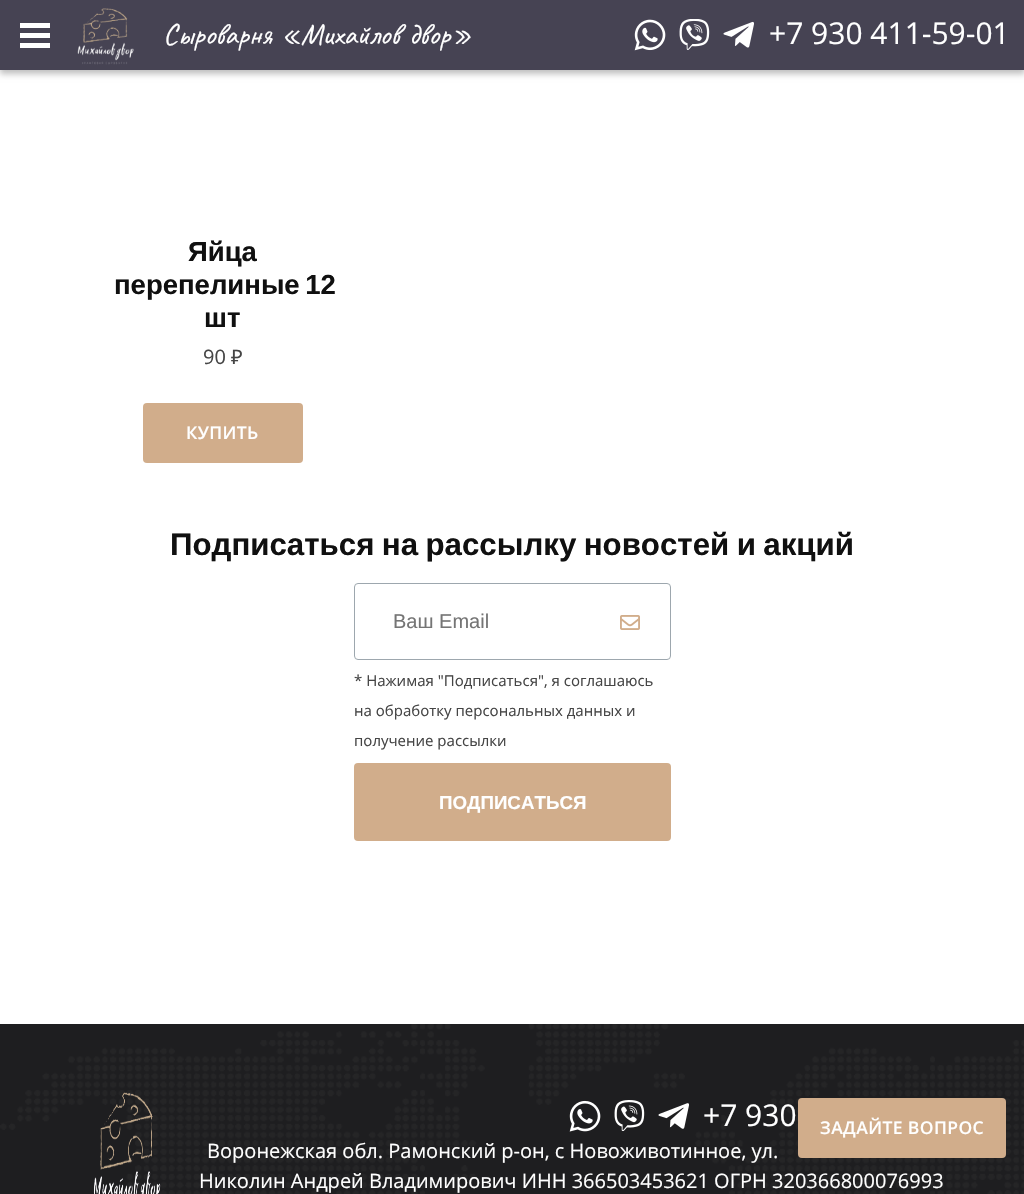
void draw(SkCanvas* c) {
SkPaint p;
p.setAntiAlias(true);
auto F=[&](const char* family, int weight, float size, bool italic = false){SkFontStyle style(weight, SkFontStyle::kNormal_Width,italic ? SkFontStyle::kItalic_Slant : SkFontStyle::kUpright_Slant);SkFont result(fontMgr->matchFamilyStyle(family, style), size);result.setSubpixel(true);return result;};
auto T=[&](const char* s, float x, float y, const SkFont& font){c->drawString(s, x, y, font, p);};
auto L=[&](const char* s, float x, float y, const SkFont& font, const SkPaint& ink, float letter, float word){std::vector<SkGlyphID> glyphs(font.countText(s, strlen(s), SkTextEncoding::kUTF8));std::vector<float> xs(glyphs.size());font.textToGlyphs(s, strlen(s), SkTextEncoding::kUTF8, glyphs);font.getXPos(glyphs, xs, x);float extra = 0;for (size_t i = 0; i < glyphs.size(); i++) {xs[i] += extra;extra += letter + word * (glyphs[i] == font.unicharToGlyph(' '));}c->drawTextBlob(SkTextBlob::MakeFromPosHGlyphs(glyphs, xs, y, font), 0, 0, ink);};
auto R=[&](float x, float y, float w, float h){c->drawRect(SkRect::MakeXYWH(x, y, w, h), p);};
auto Q=[&](float x, float y, float w, float h, float radius){c->drawRoundRect(SkRect::MakeXYWH(x, y, w, h), radius, radius, p);};
auto I=[&](const char* path, float x, float y, float w, float h){auto image = SkImages::DeferredFromEncodedData(SkData::MakeFromFileName(path));c->drawImageRect(image, SkRect::MakeXYWH(x, y, w, h), SkSamplingOptions());};
c->clear(0xffffffff);
p.setColor(0x40000000);
p.setMaskFilter(SkMaskFilter::MakeBlur(kNormal_SkBlurStyle, 3));
c->drawRect(SkRect::MakeXYWH(0,4,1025,70),p);
p.setMaskFilter(nullptr);
p.setColor(0xff464353);
R(0,0,1024,70);
p.setColor(0xffffffff);
R(20,33,30,5);
R(20,23,30,5);
R(20,43,30,5);
I("1.png",77,8,57,57);
auto f1 = F("Caveat",400,30);
L("Сыроварня «Михайлов двор»",163,44,f1,p,0,2);
I("2.png",634,19,32,32);
I("3.png",679,19,31,31);
I("4.png",723,21,31,27);
auto f2 = F("Open Sans",400,30);
T("+7 930 411-59-01",769,44,f2);
auto f3 = F("Liberation Sans",700,27.5);
p.setColor(0xff101010);
T("Яйца",188,261,f3);
L("перепелиные 12",114,294,f3,p,0,-2);
T("шт",204,327,f3);
auto f4 = F("Open Sans",400,20);
p.setColor(0xff454545);
T("90",203,364,f4);
auto f5 = F("Noto Sans",400,20);
T("₽",231,364,f5);
p.setColor(0xffd1ad8b);
Q(143,403,160,60,4);
auto f6 = F("Open Sans",600,17.5);
p.setColor(0xffffffff);
L("КУПИТЬ",186,439,f6,p,.4,0);
auto f7 = F("Liberation Sans",700,31.25);
p.setColor(0xff101010);
L("Подписаться на рассылку новостей и акций",170,555,f7,p,0,-1.25);
p.setStroke(true);
p.setStrokeWidth(1);
p.setColor(0xff9da7ae);
c->drawRoundRect(SkRect::MakeXYWH(354.5,583.5,316,76),3.5,3.5,p);
auto f8 = F("Liberation Sans",400,20);
p.setStroke(false);
p.setColor(0xff757575);
T("Ваш Email",393,628,f8);
I("5.png",620,615,20,15);
auto f9 = F("Open Sans",400,15);
p.setColor(0xff454545);
T("* Нажимая \"Подписаться\", я соглашаюсь",354,686,f9);
T("на обработку персональных данных и",354,716,f9);
T("получение рассылки",354,746,f9);
p.setColor(0xffd1ad8b);
Q(354,763,317,78,4);
auto f10 = F("Liberation Sans",700,18.75);
p.setColor(0xffffffff);
T("ПОДПИСАТЬСЯ",439,809,f10);
p.setColor(0xff1e1e20);
R(0,1024,1024,170);
I("6.png",0,1024,1024,170);
I("7.png",93,1092,68,102);
I("8.png",569,1100,32,32);
I("9.png",614,1100,31,31);
I("10.png",658,1103,31,26);
p.setColor(0xffffffff);
T("+7 930",703,1126,f2);
T("Воронежская обл. Рамонский р-он, с Новоживотинное, ул.",207,1158,f4);
T("Николин Андрей Владимирович ИНН 366503453621 ОГРН 320366800076993",199,1188,f4);
p.setColor(0xffd1ad8b);
Q(798,1098,208,60,4);
p.setColor(0xffffffff);
L("ЗАДАЙТЕ ВОПРОС",820,1134,f6,p,.4,0);
}
